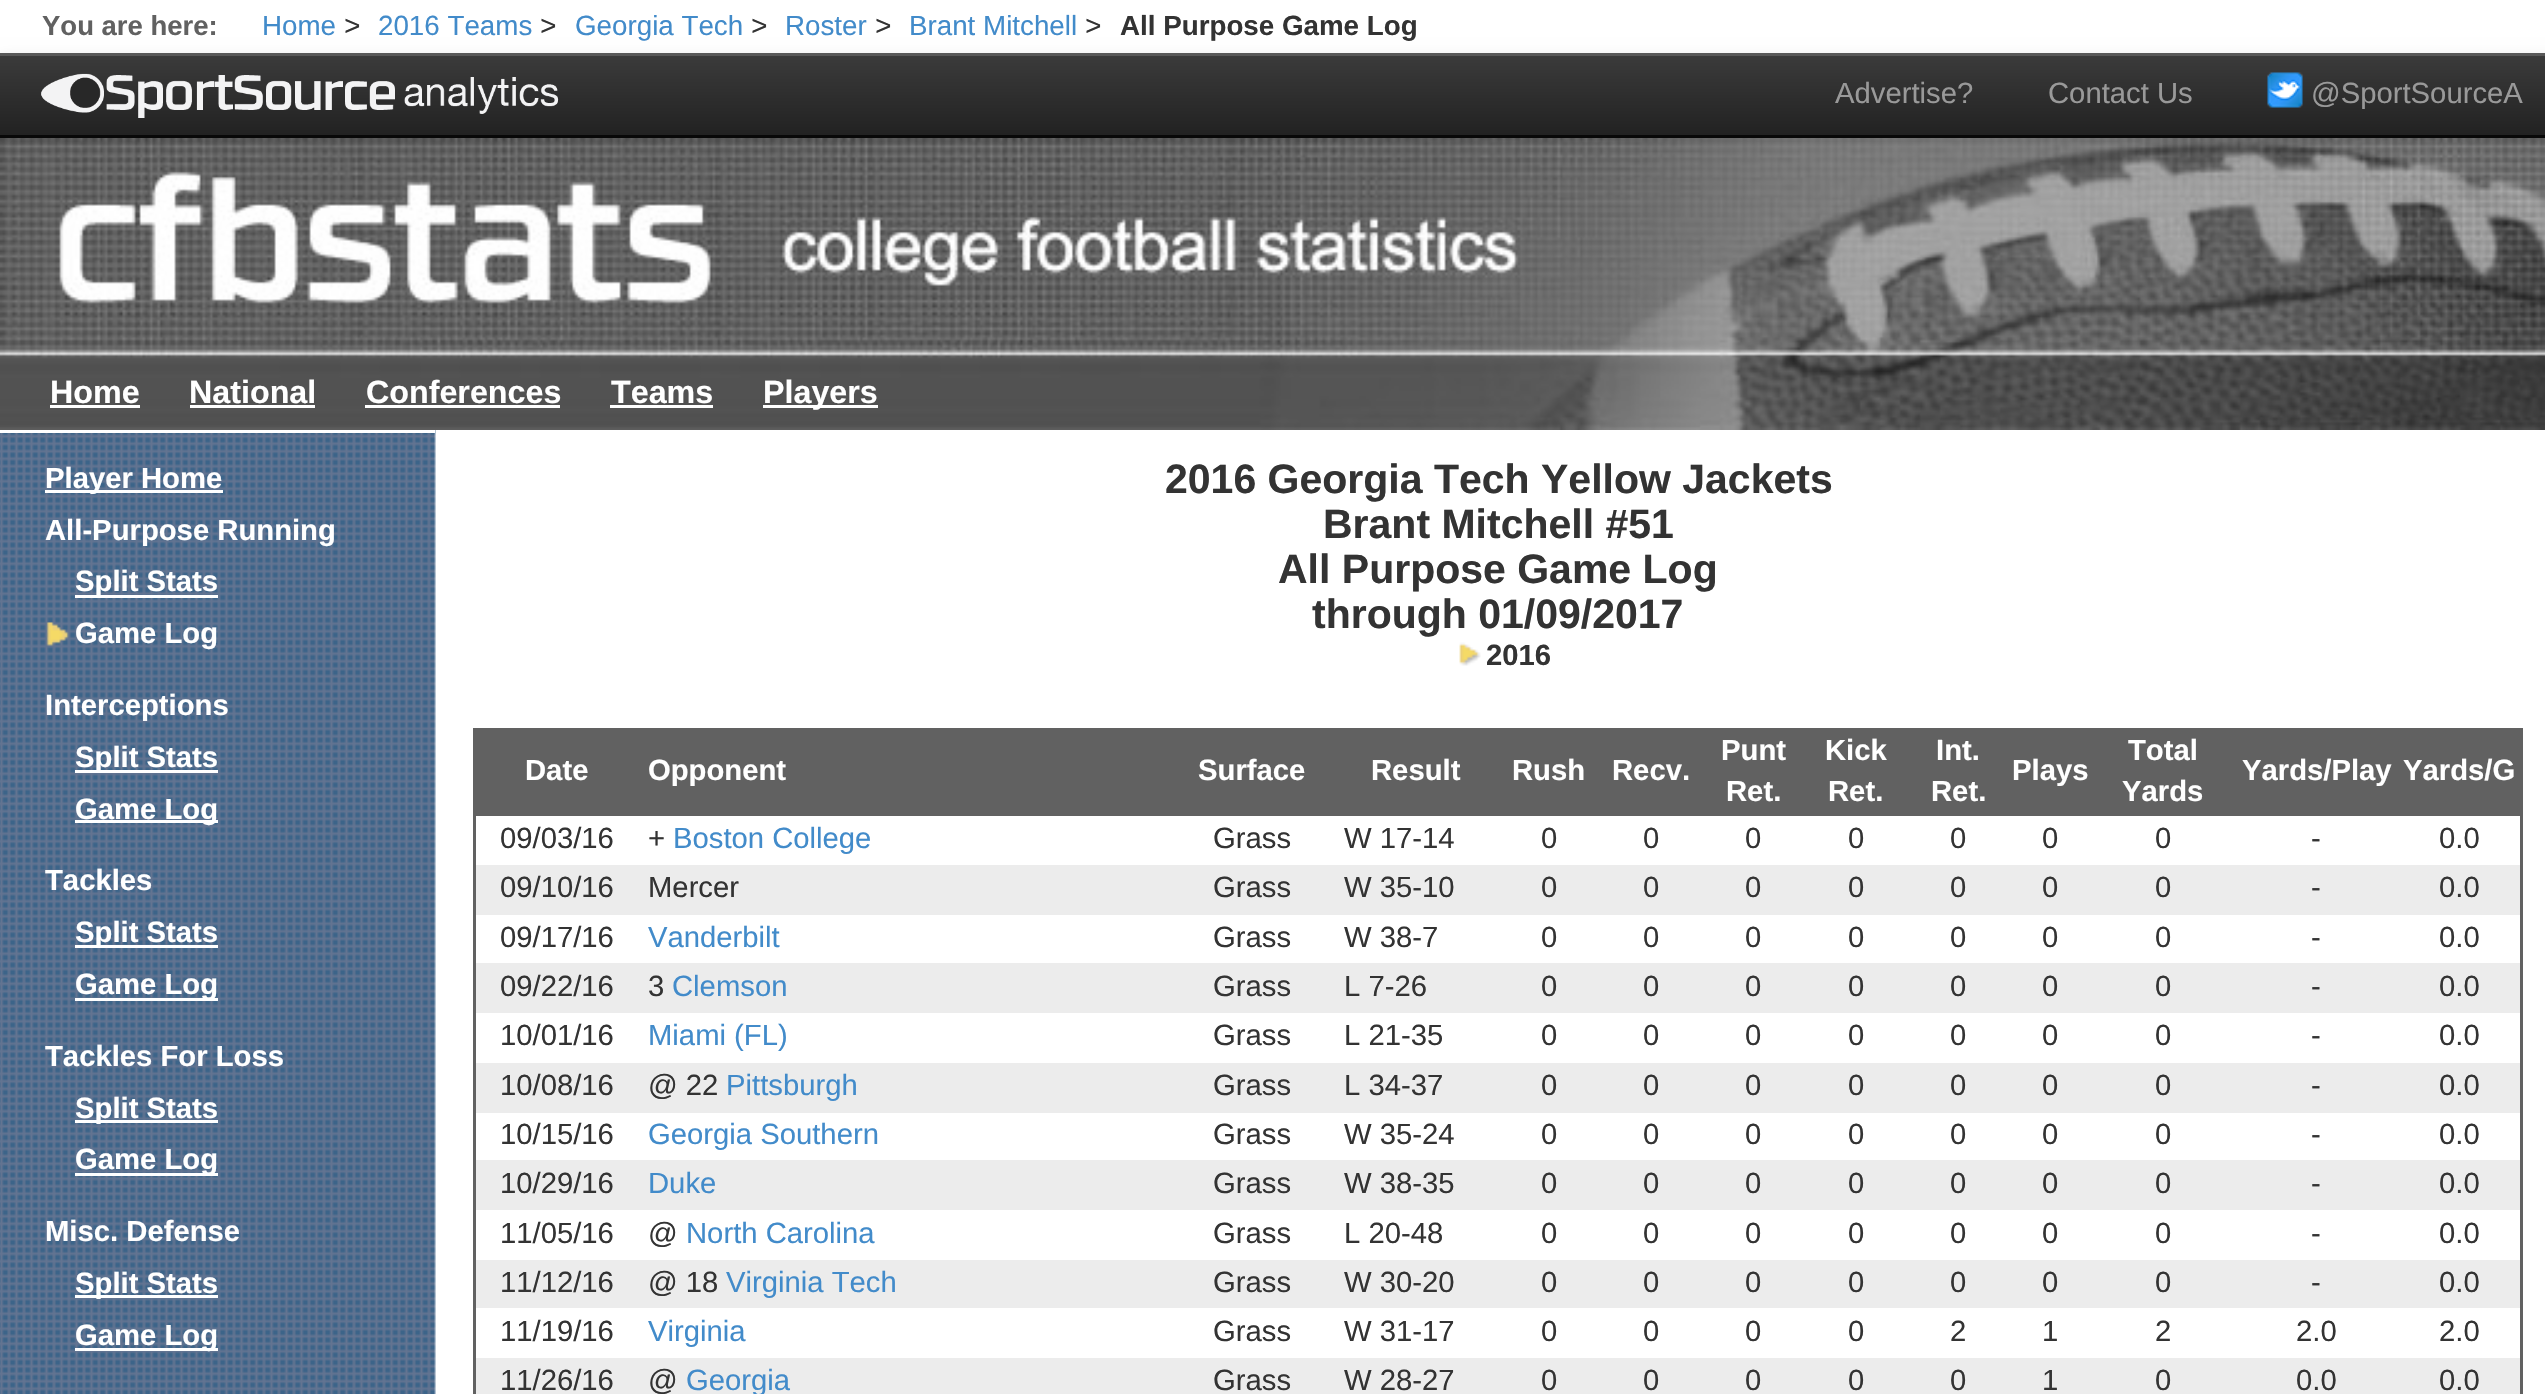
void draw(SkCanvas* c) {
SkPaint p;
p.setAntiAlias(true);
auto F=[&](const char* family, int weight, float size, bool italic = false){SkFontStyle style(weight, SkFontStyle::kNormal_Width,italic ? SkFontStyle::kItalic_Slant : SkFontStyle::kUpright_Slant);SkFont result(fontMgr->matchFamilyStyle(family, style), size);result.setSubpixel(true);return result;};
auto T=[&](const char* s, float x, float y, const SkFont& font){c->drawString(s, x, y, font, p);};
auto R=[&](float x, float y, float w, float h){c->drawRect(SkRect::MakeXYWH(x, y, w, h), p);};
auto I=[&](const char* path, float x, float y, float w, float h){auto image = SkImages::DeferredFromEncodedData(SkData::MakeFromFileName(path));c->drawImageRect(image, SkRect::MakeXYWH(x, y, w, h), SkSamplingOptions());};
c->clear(0xffffffff);
I("1.png",0,430,436,964);
auto f1 = F("Liberation Sans",700,27.5);
p.setColor(0xff616161);
T("You are here:",42,35,f1);
auto f2 = F("Liberation Sans",400,27.75);
p.setColor(0xff428bca);
T("Home",262,35,f2);
auto f3 = F("Liberation Mono",400,27.75);
p.setColor(0xff333333);
T(">",344,35,f3);
p.setColor(0xff428bca);
T("2016 Teams",378,35,f2);
p.setColor(0xff333333);
T(">",540,35,f3);
p.setColor(0xff428bca);
T("Georgia Tech",575,35,f2);
p.setColor(0xff333333);
T(">",751,35,f3);
p.setColor(0xff428bca);
T("Roster",785,35,f2);
p.setColor(0xff333333);
T(">",875,35,f3);
p.setColor(0xff428bca);
T("Brant Mitchell",909,35,f2);
p.setColor(0xff333333);
T(">",1085,35,f3);
auto f4 = F("Liberation Sans",700,27.75);
T("All Purpose Game Log",1120,35,f4);
I("4.png",0,138,2545,292);
p.setColor(0x12000000);
p.setMaskFilter(SkMaskFilter::MakeBlur(kNormal_SkBlurStyle, 6));
c->drawRect(SkRect::MakeXYWH(0,55,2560,85),p);
p.setMaskFilter(nullptr);
{
const SkColor colors[] = {0xff3c3c3c,0xff222222};
const float stops[] = {0,1};
const SkPoint ends[] = {{1280,52}, {1280,135}};
p.setShader(SkGradientShader::MakeLinear(ends, colors, stops, 2, SkTileMode::kClamp));
p.setAlpha(255);
}
R(0,56,2545,79);
p.setShader(nullptr);
p.setColor(0xff595959);
R(0,53,2545,3);
p.setColor(0xff080808);
R(0,135,2545,3);
I("2.png",41,73,518,45);
auto f5 = F("Liberation Sans",400,29.25);
p.setColor(0xff999999);
T("Advertise?",1835,103,f5);
T("Contact Us",2048,103,f5);
I("3.png",2267,72,36,36);
T("@SportSourceA",2311,103,f5);
auto f6 = F("Liberation Sans",700,32.25);
p.setColor(0xffffffff);
T("Home",50,403,f6);
R(50,405,90,3);
T("National",189,403,f6);
R(190,405,125,3);
T("Conferences",366,403,f6);
R(365,405,195,3);
T("Teams",611,403,f6);
R(610,405,103,3);
R(763,405,115,3);
T("Players",763,403,f6);
R(0,430,435,3);
R(45,490,178,3);
auto f7 = F("Liberation Sans",700,29.25);
T("Player Home",45,488,f7);
T("All-Purpose Running",45,540,f7);
R(75,595,143,3);
T("Split Stats",75,591,f7);
I("5.png",46,622,23,24);
T("Game Log",75,643,f7);
T("Interceptions",45,715,f7);
R(75,770,143,3);
T("Split Stats",75,767,f7);
R(75,820,143,3);
T("Game Log",75,819,f7);
T("Tackles",45,890,f7);
R(75,945,143,3);
T("Split Stats",75,942,f7);
R(75,998,143,3);
T("Game Log",75,994,f7);
T("Tackles For Loss",45,1066,f7);
R(75,1120,143,3);
T("Split Stats",75,1118,f7);
R(75,1173,143,3);
T("Game Log",75,1169,f7);
T("Misc. Defense",45,1241,f7);
R(75,1295,143,3);
T("Split Stats",75,1293,f7);
R(75,1348,143,3);
T("Game Log",75,1345,f7);
auto f8 = F("Liberation Sans",700,41);
p.setColor(0xff333333);
T("2016 Georgia Tech Yellow Jackets",1165,493,f8);
T("Brant Mitchell #51",1323,538,f8);
T("All Purpose Game Log",1278,583,f8);
T("through 01/09/2017",1312,628,f8);
I("6.png",1459,642,22,24);
T("2016",1486,665,f7);
p.setColor(0xff616161);
R(473,728,2050,3);
R(2520,728,3,666);
R(473,728,3,666);
R(476,731,2044,82);
p.setColor(0xffffffff);
T("Date",525,780,f7);
T("Opponent",648,780,f7);
T("Surface",1198,780,f7);
T("Result",1371,780,f7);
T("Rush",1512,780,f7);
T("Recv.",1612,780,f7);
T("Punt",1721,760,f7);
T("Ret.",1726,801,f7);
T("Kick",1825,760,f7);
T("Ret.",1828,801,f7);
T("Int.",1936,760,f7);
T("Ret.",1931,801,f7);
T("Plays",2012,780,f7);
T("Total",2128,760,f7);
T("Yards",2122,801,f7);
T("Yards/Play",2242,780,f7);
p.setColor(0xff616161);
R(473,813,2050,3);
p.setColor(0xffffffff);
T("Yards/G",2403,780,f7);
p.setColor(0xff333333);
T("09/03/16",500,848,f5);
T("+",648,848,f5);
p.setColor(0xff428bca);
T("Boston College",673,848,f5);
p.setColor(0xff333333);
T("Grass",1213,848,f5);
T("W 17-14",1344,848,f5);
T("0",1541,848,f5);
T("0",1643,848,f5);
T("0",1745,848,f5);
T("0",1848,848,f5);
T("0",1950,848,f5);
T("0",2042,848,f5);
T("0",2155,848,f5);
T("-",2311,848,f5);
T("0.0",2439,848,f5);
p.setColor(0xffececec);
R(476,865,2044,50);
p.setColor(0xff333333);
T("09/10/16",500,897,f5);
T("Mercer",648,897,f5);
T("Grass",1213,897,f5);
T("W 35-10",1344,897,f5);
T("0",1541,897,f5);
T("0",1643,897,f5);
T("0",1745,897,f5);
T("0",1848,897,f5);
T("0",1950,897,f5);
T("0",2042,897,f5);
T("0",2155,897,f5);
T("-",2311,897,f5);
T("0.0",2439,897,f5);
T("09/17/16",500,947,f5);
p.setColor(0xff428bca);
T("Vanderbilt",648,947,f5);
p.setColor(0xff333333);
T("Grass",1213,947,f5);
T("W 38-7",1344,947,f5);
T("0",1541,947,f5);
T("0",1643,947,f5);
T("0",1745,947,f5);
T("0",1848,947,f5);
T("0",1950,947,f5);
T("0",2042,947,f5);
T("0",2155,947,f5);
T("-",2311,947,f5);
T("0.0",2439,947,f5);
p.setColor(0xffececec);
R(476,963,2044,50);
p.setColor(0xff333333);
T("09/22/16",500,996,f5);
T("3",648,996,f5);
p.setColor(0xff428bca);
T("Clemson",672,996,f5);
p.setColor(0xff333333);
T("Grass",1213,996,f5);
T("L 7-26",1344,996,f5);
T("0",1541,996,f5);
T("0",1643,996,f5);
T("0",1745,996,f5);
T("0",1848,996,f5);
T("0",1950,996,f5);
T("0",2042,996,f5);
T("0",2155,996,f5);
T("-",2311,996,f5);
T("0.0",2439,996,f5);
T("10/01/16",500,1045,f5);
p.setColor(0xff428bca);
T("Miami (FL)",648,1045,f5);
p.setColor(0xff333333);
T("Grass",1213,1045,f5);
T("L 21-35",1344,1045,f5);
T("0",1541,1045,f5);
T("0",1643,1045,f5);
T("0",1745,1045,f5);
T("0",1848,1045,f5);
T("0",1950,1045,f5);
T("0",2042,1045,f5);
T("0",2155,1045,f5);
T("-",2311,1045,f5);
T("0.0",2439,1045,f5);
p.setColor(0xffececec);
R(476,1063,2044,50);
p.setColor(0xff333333);
T("10/08/16",500,1095,f5);
T("@ 22",648,1095,f5);
p.setColor(0xff428bca);
T("Pittsburgh",726,1095,f5);
p.setColor(0xff333333);
T("Grass",1213,1095,f5);
T("L 34-37",1344,1095,f5);
T("0",1541,1095,f5);
T("0",1643,1095,f5);
T("0",1745,1095,f5);
T("0",1848,1095,f5);
T("0",1950,1095,f5);
T("0",2042,1095,f5);
T("0",2155,1095,f5);
T("-",2311,1095,f5);
T("0.0",2439,1095,f5);
T("10/15/16",500,1144,f5);
p.setColor(0xff428bca);
T("Georgia Southern",648,1144,f5);
p.setColor(0xff333333);
T("Grass",1213,1144,f5);
T("W 35-24",1344,1144,f5);
T("0",1541,1144,f5);
T("0",1643,1144,f5);
T("0",1745,1144,f5);
T("0",1848,1144,f5);
T("0",1950,1144,f5);
T("0",2042,1144,f5);
T("0",2155,1144,f5);
T("-",2311,1144,f5);
T("0.0",2439,1144,f5);
p.setColor(0xffececec);
R(476,1160,2044,50);
p.setColor(0xff333333);
T("10/29/16",500,1193,f5);
p.setColor(0xff428bca);
T("Duke",648,1193,f5);
p.setColor(0xff333333);
T("Grass",1213,1193,f5);
T("W 38-35",1344,1193,f5);
T("0",1541,1193,f5);
T("0",1643,1193,f5);
T("0",1745,1193,f5);
T("0",1848,1193,f5);
T("0",1950,1193,f5);
T("0",2042,1193,f5);
T("0",2155,1193,f5);
T("-",2311,1193,f5);
T("0.0",2439,1193,f5);
T("11/05/16",500,1243,f5);
T("@",648,1243,f5);
p.setColor(0xff428bca);
T("North Carolina",686,1243,f5);
p.setColor(0xff333333);
T("Grass",1213,1243,f5);
T("L 20-48",1344,1243,f5);
T("0",1541,1243,f5);
T("0",1643,1243,f5);
T("0",1745,1243,f5);
T("0",1848,1243,f5);
T("0",1950,1243,f5);
T("0",2042,1243,f5);
T("0",2155,1243,f5);
T("-",2311,1243,f5);
T("0.0",2439,1243,f5);
p.setColor(0xffececec);
R(476,1260,2044,48);
p.setColor(0xff333333);
T("11/12/16",500,1292,f5);
T("@ 18",648,1292,f5);
p.setColor(0xff428bca);
T("Virginia Tech",726,1292,f5);
p.setColor(0xff333333);
T("Grass",1213,1292,f5);
T("W 30-20",1344,1292,f5);
T("0",1541,1292,f5);
T("0",1643,1292,f5);
T("0",1745,1292,f5);
T("0",1848,1292,f5);
T("0",1950,1292,f5);
T("0",2042,1292,f5);
T("0",2155,1292,f5);
T("-",2311,1292,f5);
T("0.0",2439,1292,f5);
T("11/19/16",500,1341,f5);
p.setColor(0xff428bca);
T("Virginia",648,1341,f5);
p.setColor(0xff333333);
T("Grass",1213,1341,f5);
T("W 31-17",1344,1341,f5);
T("0",1541,1341,f5);
T("0",1643,1341,f5);
T("0",1745,1341,f5);
T("0",1848,1341,f5);
T("2",1950,1341,f5);
T("1",2042,1341,f5);
T("2",2155,1341,f5);
T("2.0",2296,1341,f5);
T("2.0",2439,1341,f5);
p.setColor(0xffececec);
R(476,1358,2044,36);
p.setColor(0xff333333);
T("11/26/16",500,1390,f5);
T("@",648,1390,f5);
p.setColor(0xff428bca);
T("Georgia",686,1390,f5);
p.setColor(0xff333333);
T("Grass",1213,1390,f5);
T("W 28-27",1344,1390,f5);
T("0",1541,1390,f5);
T("0",1643,1390,f5);
T("0",1745,1390,f5);
T("0",1848,1390,f5);
T("0",1950,1390,f5);
T("1",2042,1390,f5);
T("0",2155,1390,f5);
T("0.0",2296,1390,f5);
T("0.0",2439,1390,f5);
}
